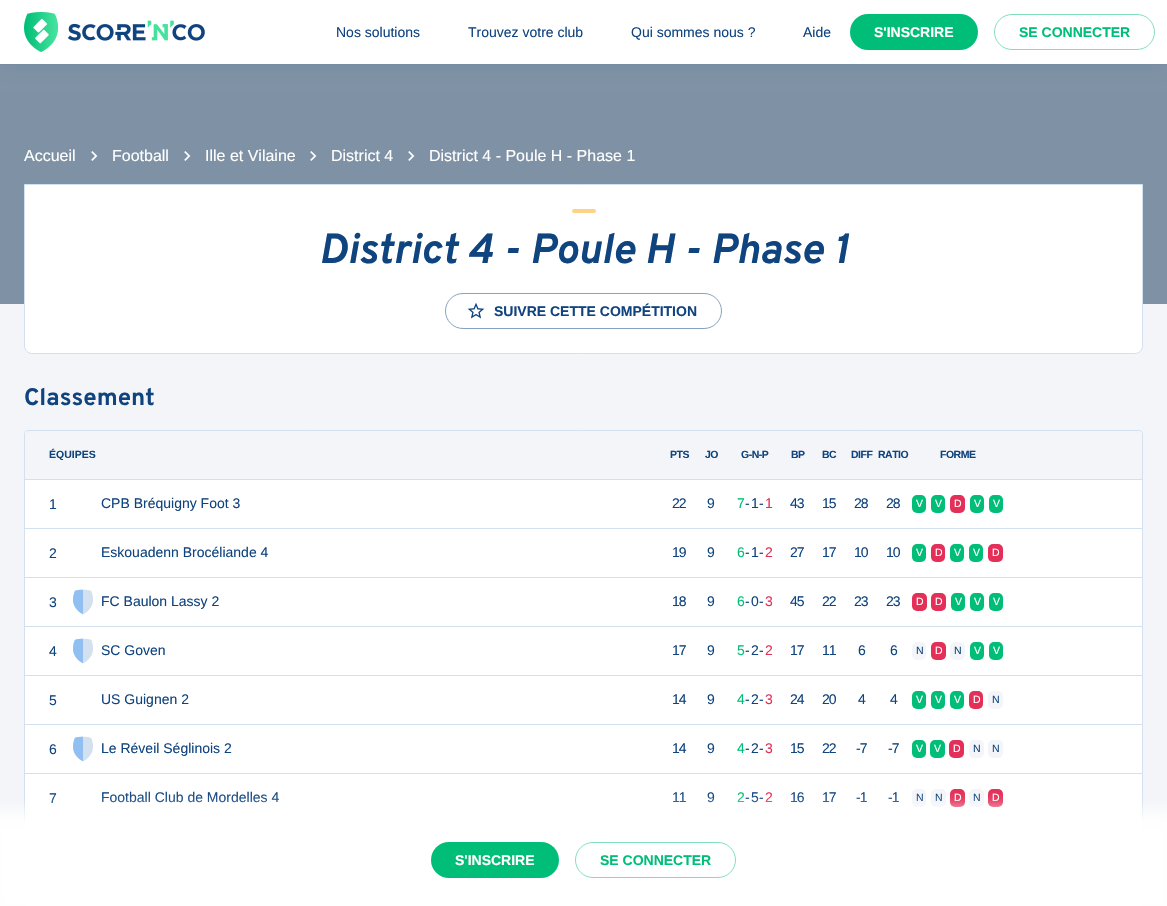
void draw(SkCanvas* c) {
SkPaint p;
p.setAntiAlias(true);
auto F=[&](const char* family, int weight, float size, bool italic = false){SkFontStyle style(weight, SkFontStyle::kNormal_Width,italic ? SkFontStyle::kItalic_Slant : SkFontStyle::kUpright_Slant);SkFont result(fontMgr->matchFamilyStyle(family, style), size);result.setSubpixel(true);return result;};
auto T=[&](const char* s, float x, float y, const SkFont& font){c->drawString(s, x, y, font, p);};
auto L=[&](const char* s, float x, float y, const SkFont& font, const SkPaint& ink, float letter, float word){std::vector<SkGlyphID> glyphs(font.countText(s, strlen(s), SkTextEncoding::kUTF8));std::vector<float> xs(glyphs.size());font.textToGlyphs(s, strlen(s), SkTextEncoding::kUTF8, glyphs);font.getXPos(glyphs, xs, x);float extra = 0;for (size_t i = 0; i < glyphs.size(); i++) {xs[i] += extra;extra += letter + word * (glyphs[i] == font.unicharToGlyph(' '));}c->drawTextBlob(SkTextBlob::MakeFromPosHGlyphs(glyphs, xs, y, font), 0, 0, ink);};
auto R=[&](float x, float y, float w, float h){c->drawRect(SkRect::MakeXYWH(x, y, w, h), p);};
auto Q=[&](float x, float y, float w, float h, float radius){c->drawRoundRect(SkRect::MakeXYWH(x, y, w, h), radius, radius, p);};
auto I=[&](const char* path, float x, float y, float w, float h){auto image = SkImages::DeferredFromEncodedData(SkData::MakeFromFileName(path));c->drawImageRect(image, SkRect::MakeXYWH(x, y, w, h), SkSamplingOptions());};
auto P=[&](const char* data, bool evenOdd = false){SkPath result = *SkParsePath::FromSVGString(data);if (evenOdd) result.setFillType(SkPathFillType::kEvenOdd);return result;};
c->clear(0xfff3f5f9);
p.setColor(0xff7f92a5);
R(0,64,1167,240);
p.setColor(0x1a10447f);
p.setMaskFilter(SkMaskFilter::MakeBlur(kNormal_SkBlurStyle, 1));
c->drawRect(SkRect::MakeXYWH(0,0,1167,64),p);
p.setMaskFilter(nullptr);
p.setMaskFilter(SkMaskFilter::MakeBlur(kNormal_SkBlurStyle, 12));
c->drawRect(SkRect::MakeXYWH(0,0,1167,64),p);
p.setMaskFilter(nullptr);
p.setColor(0xffffffff);
R(0,0,1167,64);
I("1.png",24,12,181,40);
auto f1 = F("Liberation Sans",400,14);
p.setColor(0xff10447f);
T("Nos solutions",336,37,f1);
T("Trouvez votre club",468,37,f1);
T("Qui sommes nous ?",631,37,f1);
T("Aide",803,37,f1);
p.setColor(0xff00be77);
Q(850,14,128,36,18);
auto f2 = F("Liberation Sans",700,14);
p.setColor(0xffffffff);
T("S'INSCRIRE",874,37,f2);
p.setStroke(true);
p.setStrokeWidth(1);
p.setColor(0xff80dfbb);
c->drawRoundRect(SkRect::MakeXYWH(994.5,14.5,160,35),17.5,17.5,p);
p.setStroke(false);
p.setColor(0xff00be77);
T("SE CONNECTER",1019,37,f2);
auto f3 = F("Liberation Sans",400,16);
p.setColor(0xffffffff);
T("Accueil",24,161,f3);
I("2.png",91,151,7,10);
T("Football",112,161,f3);
I("2.png",184,151,7,10);
T("Ille et Vilaine",205,161,f3);
I("2.png",310,151,7,10);
T("District 4",331,161,f3);
I("2.png",408,151,7,10);
T("District 4 - Poule H - Phase 1",429,161,f3);
c->drawPath(P("M24.5 184.5h1118v161.5c0 4-3.5 7.5-7.5 7.5h-1103c-4 0-7.5-3.5-7.5-7.5z"),p);
p.setStroke(true);
p.setColor(0xffd2e0ef);
c->drawPath(P("M24.5 184.5h1118v161.5c0 4-3.5 7.5-7.5 7.5h-1103c-4 0-7.5-3.5-7.5-7.5z"),p);
p.setStroke(false);
p.setColor(0xfffed385);
Q(572,209,24,4,2);
auto f4 = F("Overpass",700,42,true);
p.setColor(0xff10447f);
T("District 4 - Poule H - Phase 1",319,263,f4);
p.setStroke(true);
p.setColor(0xff88a2bf);
c->drawRoundRect(SkRect::MakeXYWH(445.5,293.5,276,35),17.5,17.5,p);
I("3.png",467,302,18,17);
p.setStroke(false);
p.setColor(0xff10447f);
T("SUIVRE CETTE COMPÉTITION",494,316,f2);
auto f5 = F("Overpass",700,24);
T("Classement",24,405,f5);
p.setColor(0xffffffff);
c->drawRoundRect(SkRect::MakeXYWH(24.5,430.5,1118,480),3.5,3.5,p);
p.setStroke(true);
p.setColor(0xffd2e0ef);
c->drawRoundRect(SkRect::MakeXYWH(24.5,430.5,1118,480),3.5,3.5,p);
p.setStroke(false);
p.setColor(0xfff3f5f9);
c->drawPath(P("M28 431h1111c1.5 0 3 1.5 3 3v45h-1117v-45c0-1.5 1.5-3 3-3z"),p);
auto f6 = F("Liberation Sans",700,10.5);
p.setColor(0xff10447f);
T("ÉQUIPES",49,458,f6);
p.setColor(0xffd2e0ef);
R(25,479,1117,1);
p.setColor(0xff10447f);
T("1",49,509,f1);
T("CPB Bréquigny Foot 3",101,508,f1);
p.setColor(0xffd2e0ef);
R(25,528,1117,1);
p.setColor(0xff10447f);
T("2",49,558,f1);
T("Eskouadenn Brocéliande 4",101,557,f1);
p.setColor(0xffd2e0ef);
R(25,577,1117,1);
p.setColor(0xff10447f);
T("3",49,607,f1);
I("4.png",73,589,20,26);
T("FC Baulon Lassy 2",101,606,f1);
p.setColor(0xffd2e0ef);
R(25,626,1117,1);
p.setColor(0xff10447f);
T("4",49,656,f1);
I("4.png",73,638,20,26);
T("SC Goven",101,655,f1);
p.setColor(0xffd2e0ef);
R(25,675,1117,1);
p.setColor(0xff10447f);
T("5",49,705,f1);
T("US Guignen 2",101,704,f1);
p.setColor(0xffd2e0ef);
R(25,724,1117,1);
p.setColor(0xff10447f);
T("6",49,754,f1);
I("4.png",73,736,20,26);
T("Le Réveil Séglinois 2",101,753,f1);
p.setColor(0xffd2e0ef);
R(25,773,1117,1);
p.setColor(0xff10447f);
T("7",49,803,f1);
T("Football Club de Mordelles 4",101,802,f1);
L("PTS",670,458,f6,p,-.5,0);
L("JO",705,458,f6,p,-.5,0);
L("G-N-P",741,458,f6,p,-.5,0);
L("BP",791,458,f6,p,-.5,0);
L("BC",822,458,f6,p,-.5,0);
L("DIFF",851,458,f6,p,-.5,0);
L("RATIO",878,458,f6,p,-.5,0);
L("FORME",940,458,f6,p,-.5,0);
L("22",672,508,f1,p,-1,0);
L("9",707,508,f1,p,-1,0);
p.setColor(0xff00be77);
L("7",737,508,f1,p,-1,0);
p.setColor(0xff10447f);
L("-",745,508,f1,p,-1,0);
L("1",751,508,f1,p,-1,0);
L("-",759,508,f1,p,-1,0);
p.setColor(0xffe42f59);
L("1",765,508,f1,p,-1,0);
p.setColor(0xff10447f);
L("43",790,508,f1,p,-1,0);
L("15",822,508,f1,p,-1,0);
L("28",854,508,f1,p,-1,0);
L("28",886,508,f1,p,-1,0);
p.setColor(0xff00be77);
Q(912,495,14,18,5);
auto f7 = F("Liberation Sans",400,10.5);
p.setColor(0xffffffff);
L("V",916,507,f7,p,-1,0);
p.setColor(0xff00be77);
Q(931,495,14,18,5);
p.setColor(0xffffffff);
L("V",935,507,f7,p,-1,0);
p.setColor(0xffe42f59);
Q(950,495,15,18,5);
p.setColor(0xffffffff);
L("D",954,507,f7,p,-1,0);
p.setColor(0xff00be77);
Q(970,495,14,18,5);
p.setColor(0xffffffff);
L("V",974,507,f7,p,-1,0);
p.setColor(0xff00be77);
Q(989,495,14,18,5);
p.setColor(0xffffffff);
L("V",993,507,f7,p,-1,0);
p.setColor(0xff10447f);
L("19",672,557,f1,p,-1,0);
L("9",707,557,f1,p,-1,0);
p.setColor(0xff00be77);
L("6",737,557,f1,p,-1,0);
p.setColor(0xff10447f);
L("-",745,557,f1,p,-1,0);
L("1",751,557,f1,p,-1,0);
L("-",759,557,f1,p,-1,0);
p.setColor(0xffe42f59);
L("2",765,557,f1,p,-1,0);
p.setColor(0xff10447f);
L("27",790,557,f1,p,-1,0);
L("17",822,557,f1,p,-1,0);
L("10",854,557,f1,p,-1,0);
L("10",886,557,f1,p,-1,0);
p.setColor(0xff00be77);
Q(912,544,14,18,5);
p.setColor(0xffffffff);
L("V",916,556,f7,p,-1,0);
p.setColor(0xffe42f59);
Q(931,544,14,18,5);
p.setColor(0xffffffff);
L("D",935,556,f7,p,-1,0);
p.setColor(0xff00be77);
Q(950,544,14,18,5);
p.setColor(0xffffffff);
L("V",954,556,f7,p,-1,0);
p.setColor(0xff00be77);
Q(969,544,14,18,5);
p.setColor(0xffffffff);
L("V",973,556,f7,p,-1,0);
p.setColor(0xffe42f59);
Q(988,544,15,18,5);
p.setColor(0xffffffff);
L("D",992,556,f7,p,-1,0);
p.setColor(0xff10447f);
L("18",672,606,f1,p,-1,0);
L("9",707,606,f1,p,-1,0);
p.setColor(0xff00be77);
L("6",737,606,f1,p,-1,0);
p.setColor(0xff10447f);
L("-",745,606,f1,p,-1,0);
L("0",751,606,f1,p,-1,0);
L("-",759,606,f1,p,-1,0);
p.setColor(0xffe42f59);
L("3",765,606,f1,p,-1,0);
p.setColor(0xff10447f);
L("45",790,606,f1,p,-1,0);
L("22",822,606,f1,p,-1,0);
L("23",854,606,f1,p,-1,0);
L("23",886,606,f1,p,-1,0);
p.setColor(0xffe42f59);
Q(912,593,15,18,5);
p.setColor(0xffffffff);
L("D",916,605,f7,p,-1,0);
p.setColor(0xffe42f59);
Q(931,593,15,18,5);
p.setColor(0xffffffff);
L("D",935,605,f7,p,-1,0);
p.setColor(0xff00be77);
Q(951,593,14,18,5);
p.setColor(0xffffffff);
L("V",955,605,f7,p,-1,0);
p.setColor(0xff00be77);
Q(970,593,14,18,5);
p.setColor(0xffffffff);
L("V",974,605,f7,p,-1,0);
p.setColor(0xff00be77);
Q(989,593,14,18,5);
p.setColor(0xffffffff);
L("V",993,605,f7,p,-1,0);
p.setColor(0xff10447f);
L("17",672,655,f1,p,-1,0);
L("9",707,655,f1,p,-1,0);
p.setColor(0xff00be77);
L("5",737,655,f1,p,-1,0);
p.setColor(0xff10447f);
L("-",745,655,f1,p,-1,0);
L("2",751,655,f1,p,-1,0);
L("-",759,655,f1,p,-1,0);
p.setColor(0xffe42f59);
L("2",765,655,f1,p,-1,0);
p.setColor(0xff10447f);
L("17",790,655,f1,p,-1,0);
L("11",822,655,f1,p,-1,0);
L("6",858,655,f1,p,-1,0);
L("6",890,655,f1,p,-1,0);
p.setColor(0xfff3f5f9);
Q(912,642,14,18,5);
p.setColor(0xff10447f);
L("N",916,654,f7,p,-1,0);
p.setColor(0xffe42f59);
Q(931,642,15,18,5);
p.setColor(0xffffffff);
L("D",935,654,f7,p,-1,0);
p.setColor(0xfff3f5f9);
Q(950,642,15,18,5);
p.setColor(0xff10447f);
L("N",954,654,f7,p,-1,0);
p.setColor(0xff00be77);
Q(970,642,14,18,5);
p.setColor(0xffffffff);
L("V",974,654,f7,p,-1,0);
p.setColor(0xff00be77);
Q(989,642,14,18,5);
p.setColor(0xffffffff);
L("V",993,654,f7,p,-1,0);
p.setColor(0xff10447f);
L("14",672,704,f1,p,-1,0);
L("9",707,704,f1,p,-1,0);
p.setColor(0xff00be77);
L("4",737,704,f1,p,-1,0);
p.setColor(0xff10447f);
L("-",745,704,f1,p,-1,0);
L("2",751,704,f1,p,-1,0);
L("-",759,704,f1,p,-1,0);
p.setColor(0xffe42f59);
L("3",765,704,f1,p,-1,0);
p.setColor(0xff10447f);
L("24",790,704,f1,p,-1,0);
L("20",822,704,f1,p,-1,0);
L("4",858,704,f1,p,-1,0);
L("4",890,704,f1,p,-1,0);
p.setColor(0xff00be77);
Q(912,691,14,18,5);
p.setColor(0xffffffff);
L("V",916,703,f7,p,-1,0);
p.setColor(0xff00be77);
Q(931,691,14,18,5);
p.setColor(0xffffffff);
L("V",935,703,f7,p,-1,0);
p.setColor(0xff00be77);
Q(950,691,14,18,5);
p.setColor(0xffffffff);
L("V",954,703,f7,p,-1,0);
p.setColor(0xffe42f59);
Q(969,691,14,18,5);
p.setColor(0xffffffff);
L("D",973,703,f7,p,-1,0);
p.setColor(0xfff3f5f9);
Q(988,691,15,18,5);
p.setColor(0xff10447f);
L("N",992,703,f7,p,-1,0);
L("14",672,753,f1,p,-1,0);
L("9",707,753,f1,p,-1,0);
p.setColor(0xff00be77);
L("4",737,753,f1,p,-1,0);
p.setColor(0xff10447f);
L("-",745,753,f1,p,-1,0);
L("2",751,753,f1,p,-1,0);
L("-",759,753,f1,p,-1,0);
p.setColor(0xffe42f59);
L("3",765,753,f1,p,-1,0);
p.setColor(0xff10447f);
L("15",790,753,f1,p,-1,0);
L("22",822,753,f1,p,-1,0);
L("-7",856,753,f1,p,-1,0);
L("-7",888,753,f1,p,-1,0);
p.setColor(0xff00be77);
Q(912,740,14,18,5);
p.setColor(0xffffffff);
L("V",916,752,f7,p,-1,0);
p.setColor(0xff00be77);
Q(930,740,15,18,5);
p.setColor(0xffffffff);
L("V",934,752,f7,p,-1,0);
p.setColor(0xffe42f59);
Q(949,740,15,18,5);
p.setColor(0xffffffff);
L("D",953,752,f7,p,-1,0);
p.setColor(0xfff3f5f9);
Q(969,740,15,18,5);
p.setColor(0xff10447f);
L("N",973,752,f7,p,-1,0);
p.setColor(0xfff3f5f9);
Q(988,740,15,18,5);
p.setColor(0xff10447f);
L("N",992,752,f7,p,-1,0);
L("11",672,802,f1,p,-1,0);
L("9",707,802,f1,p,-1,0);
p.setColor(0xff00be77);
L("2",737,802,f1,p,-1,0);
p.setColor(0xff10447f);
L("-",745,802,f1,p,-1,0);
L("5",751,802,f1,p,-1,0);
L("-",759,802,f1,p,-1,0);
p.setColor(0xffe42f59);
L("2",765,802,f1,p,-1,0);
p.setColor(0xff10447f);
L("16",790,802,f1,p,-1,0);
L("17",822,802,f1,p,-1,0);
L("-1",856,802,f1,p,-1,0);
L("-1",888,802,f1,p,-1,0);
p.setColor(0xfff3f5f9);
Q(912,789,14,18,5);
p.setColor(0xff10447f);
L("N",916,801,f7,p,-1,0);
p.setColor(0xfff3f5f9);
Q(931,789,15,18,5);
p.setColor(0xff10447f);
L("N",935,801,f7,p,-1,0);
p.setColor(0xffe42f59);
Q(950,789,15,18,5);
p.setColor(0xffffffff);
L("D",954,801,f7,p,-1,0);
p.setColor(0xfff3f5f9);
Q(969,789,15,18,5);
p.setColor(0xff10447f);
L("N",973,801,f7,p,-1,0);
p.setColor(0xffe42f59);
Q(988,789,15,18,5);
p.setColor(0xffffffff);
L("D",992,801,f7,p,-1,0);
p.setMaskFilter(SkMaskFilter::MakeBlur(kNormal_SkBlurStyle, 8));
c->drawRect(SkRect::MakeXYWH(-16,810,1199,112),p);
p.setMaskFilter(nullptr);
p.setColor(0xff00be77);
Q(431,842,128,36,18);
p.setColor(0xffffffff);
T("S'INSCRIRE",455,865,f2);
p.setStroke(true);
p.setColor(0xff80dfbb);
c->drawRoundRect(SkRect::MakeXYWH(575.5,842.5,160,35),17.5,17.5,p);
p.setStroke(false);
p.setColor(0xff00be77);
T("SE CONNECTER",600,865,f2);
}
